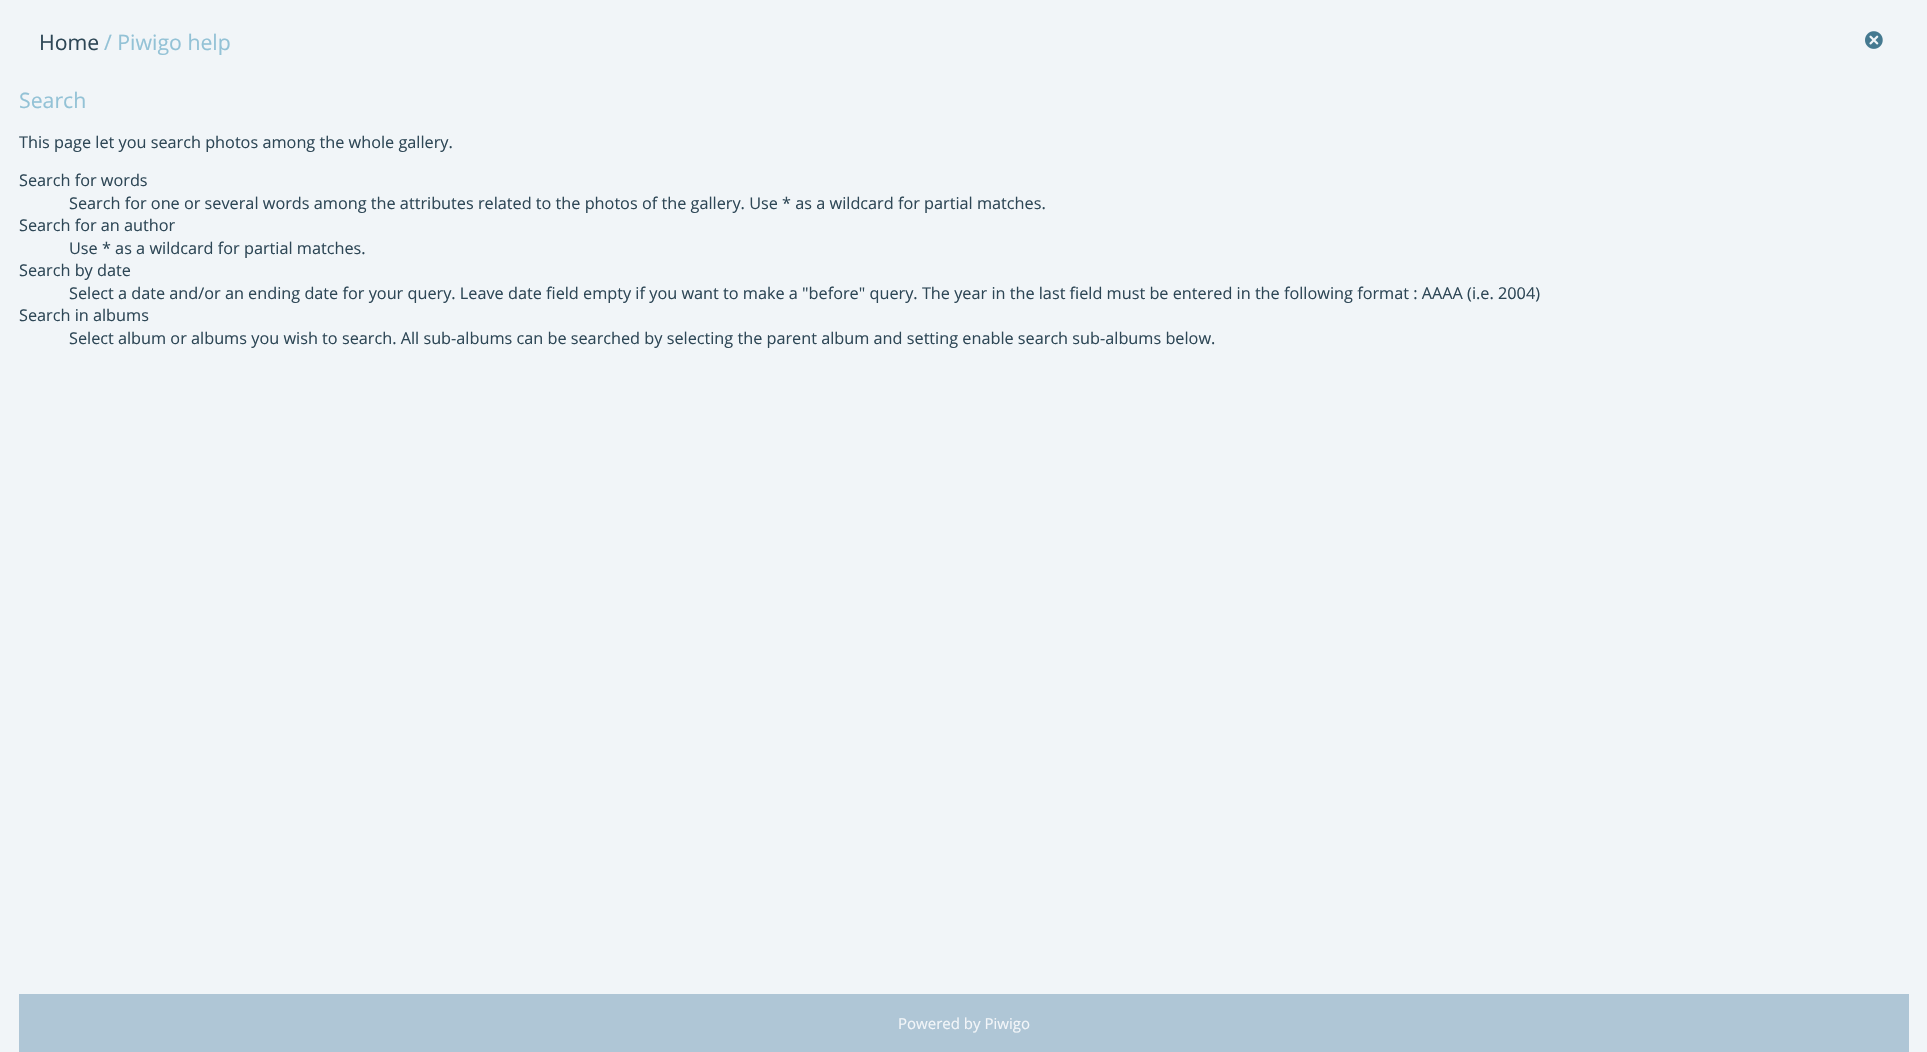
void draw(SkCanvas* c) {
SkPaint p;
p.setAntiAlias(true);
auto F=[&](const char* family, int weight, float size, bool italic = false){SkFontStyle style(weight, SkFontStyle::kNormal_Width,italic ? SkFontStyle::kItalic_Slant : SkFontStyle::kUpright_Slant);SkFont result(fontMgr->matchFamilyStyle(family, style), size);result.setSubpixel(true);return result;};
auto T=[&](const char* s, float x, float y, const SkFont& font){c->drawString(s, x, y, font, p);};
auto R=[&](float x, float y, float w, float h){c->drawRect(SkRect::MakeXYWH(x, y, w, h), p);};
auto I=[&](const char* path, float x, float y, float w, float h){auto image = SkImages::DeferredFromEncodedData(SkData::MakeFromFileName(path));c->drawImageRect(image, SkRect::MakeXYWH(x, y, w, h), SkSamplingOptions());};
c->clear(0xfff1f5f8);
auto f1 = F("Open Sans",400,21.25);
p.setColor(0xff2e4756);
T("Home",39,50,f1);
p.setColor(0xff93c2d6);
T("/ Piwigo help",104,50,f1);
I("1.png",1865,31,18,18);
T("Search",19,108,f1);
auto f2 = F("Open Sans",400,16.25);
p.setColor(0xff2e4756);
T("This page let you search photos among the whole gallery.",19,148,f2);
T("Search for words",19,186,f2);
T("Search for one or several words among the attributes related to the photos of the gallery. Use * as a wildcard for partial matches.",69,209,f2);
T("Search for an author",19,231,f2);
T("Use * as a wildcard for partial matches.",69,254,f2);
T("Search by date",19,276,f2);
T("Select a date and/or an ending date for your query. Leave date field empty if you want to make a \"before\" query. The year in the last field must be entered in the following format : AAAA (i.e. 2004)",69,299,f2);
T("Search in albums",19,321,f2);
T("Select album or albums you wish to search. All sub-albums can be searched by selecting the parent album and setting enable search sub-albums below.",69,344,f2);
p.setColor(0xffafc6d6);
R(19,994,1890,58);
auto f3 = F("Open Sans",400,15);
p.setColor(0xfff3f6f9);
T("Powered by Piwigo",898,1029,f3);
}
